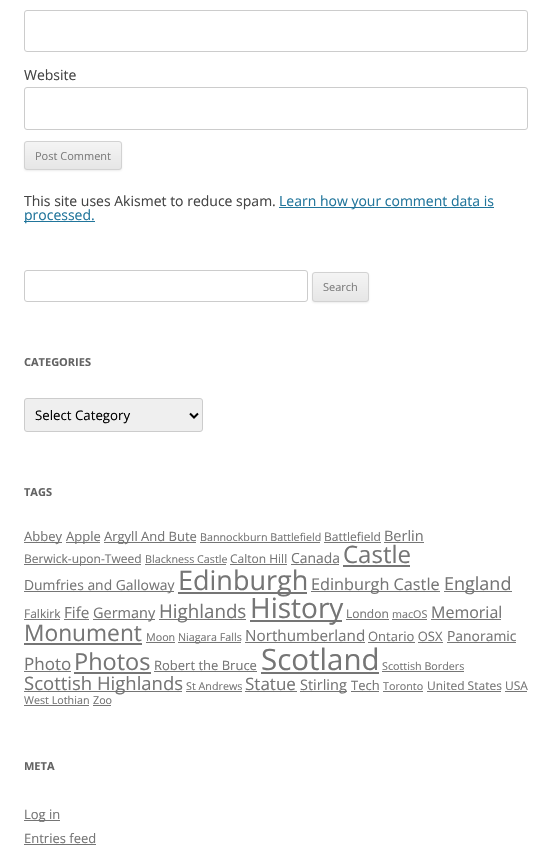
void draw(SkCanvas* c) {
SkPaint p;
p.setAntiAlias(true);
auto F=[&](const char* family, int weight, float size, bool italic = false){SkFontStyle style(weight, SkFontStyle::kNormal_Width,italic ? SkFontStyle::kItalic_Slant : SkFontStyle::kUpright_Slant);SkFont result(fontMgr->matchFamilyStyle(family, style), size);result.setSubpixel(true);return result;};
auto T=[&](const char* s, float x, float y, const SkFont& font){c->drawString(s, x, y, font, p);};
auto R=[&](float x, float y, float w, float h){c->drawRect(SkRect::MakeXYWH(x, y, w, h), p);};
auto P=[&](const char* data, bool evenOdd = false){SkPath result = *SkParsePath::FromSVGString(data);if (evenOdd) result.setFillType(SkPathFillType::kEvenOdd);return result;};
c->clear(0xffffffff);
p.setStroke(true);
p.setStrokeWidth(1);
p.setColor(0xffcccccc);
c->drawRoundRect(SkRect::MakeXYWH(24.5,10.5,503,41),2.5,2.5,p);
auto f1 = F("Open Sans",400,14);
p.setStroke(false);
p.setColor(0xff444444);
T("Website",24,80,f1);
p.setStroke(true);
p.setColor(0xffcccccc);
c->drawRoundRect(SkRect::MakeXYWH(24.5,87.5,503,42),2.5,2.5,p);
p.setStroke(false);
p.setColor(0x1a404040);
p.setMaskFilter(SkMaskFilter::MakeBlur(kNormal_SkBlurStyle, 1));
c->drawRoundRect(SkRect::MakeXYWH(24,142,98,29),3,3,p);
p.setMaskFilter(nullptr);
c->save();
c->clipPath(P("M27 141h92c1.5 0 3 1.5 3 3v23c0 1.5-1.5 3-3 3h-92c-1.5 0-3-1.5-3-3v-23c0-1.5 1.5-3 3-3z"),true);
{
const SkColor colors[] = {0xfff4f4f4,0xffe6e6e6};
const float stops[] = {0,1};
const SkPoint ends[] = {{73,142}, {73,169}};
p.setShader(SkGradientShader::MakeLinear(ends, colors, stops, 2, SkTileMode::kClamp));
p.setAlpha(255);
}
R(24,142,98,27);
c->restore();
p.setStroke(true);
p.setShader(nullptr);
p.setColor(0xffd2d2d2);
c->drawRoundRect(SkRect::MakeXYWH(24.5,141.5,97,28),2.5,2.5,p);
auto f2 = F("Open Sans",400,11);
p.setStroke(false);
p.setColor(0xff7c7c7c);
T("Post Comment",35,160,f2);
p.setColor(0xff444444);
T("This site uses Akismet to reduce spam.",24,206,f1);
p.setColor(0xff21759b);
R(279,207,215,1);
T("Learn how your comment data is",279,206,f1);
R(24,221,71,1);
T("processed.",24,220,f1);
p.setStroke(true);
p.setColor(0xffcccccc);
c->drawRoundRect(SkRect::MakeXYWH(24.5,270.5,283,31),2.5,2.5,p);
p.setStroke(false);
p.setColor(0x1a404040);
p.setMaskFilter(SkMaskFilter::MakeBlur(kNormal_SkBlurStyle, 1));
c->drawRoundRect(SkRect::MakeXYWH(312,273,57,30),3,3,p);
p.setMaskFilter(nullptr);
c->save();
c->clipPath(P("M315 272h51c1.5 0 3 1.5 3 3v24c0 1.5-1.5 3-3 3h-51c-1.5 0-3-1.5-3-3v-24c0-1.5 1.5-3 3-3z"),true);
{
const SkColor colors[] = {0xfff4f4f4,0xffe6e6e6};
const float stops[] = {0,1};
const SkPoint ends[] = {{341,273}, {341,301}};
p.setShader(SkGradientShader::MakeLinear(ends, colors, stops, 2, SkTileMode::kClamp));
p.setAlpha(255);
}
R(312,273,57,28);
c->restore();
p.setStroke(true);
p.setShader(nullptr);
p.setColor(0xffd2d2d2);
c->drawRoundRect(SkRect::MakeXYWH(312.5,272.5,56,29),2.5,2.5,p);
p.setStroke(false);
p.setColor(0xff7c7c7c);
T("Search",323,291,f2);
auto f3 = F("Open Sans",700,11);
p.setColor(0xff636363);
T("CATEGORIES",24,366,f3);
p.setColor(0xffefefef);
c->drawRoundRect(SkRect::MakeXYWH(24.5,398.5,178,33),2.5,2.5,p);
p.setStroke(true);
p.setColor(0xffcccccc);
c->drawRoundRect(SkRect::MakeXYWH(24.5,398.5,178,33),2.5,2.5,p);
p.setStrokeWidth(2);
p.setColor(0xff000000);
c->drawPath(P("M190 413.5l4 4l4-4"),p);
auto f4 = F("Open Sans",400,13.25);
p.setStroke(false);
T("Select Category",35,420,f4);
p.setColor(0xff636363);
T("TAGS",24,496,f3);
p.setColor(0xff757575);
R(24,542,38,1);
auto f5 = F("Open Sans",400,13);
T("Abbey",24,541,f5);
R(66,542,34,1);
T("Apple",66,541,f5);
R(104,542,92,1);
T("Argyll And Bute",104,541,f5);
auto f6 = F("Open Sans",400,10.75);
T("Bannockburn Battlefield",200,541,f6);
R(200,542,120,1);
auto f7 = F("Open Sans",400,12);
T("Battlefield",324,541,f7);
R(324,542,57,1);
auto f8 = F("Open Sans",400,14.5);
T("Berlin",384,541,f8);
R(384,542,40,1);
R(24,564,117,1);
T("Berwick-upon-Tweed",24,563,f7);
T("Blackness Castle",145,563,f6);
R(145,564,81,1);
T("Calton Hill",230,563,f7);
R(230,564,57,1);
auto f9 = F("Open Sans",400,13.9);
T("Canada",291,563,f9);
R(291,564,48,1);
auto f10 = F("Open Sans",400,24);
T("Castle",343,563,f10);
R(343,565,67,2);
R(24,591,150,1);
T("Dumfries and Galloway",24,590,f9);
R(178,592,129,2);
auto f11 = F("Open Sans",400,27);
T("Edinburgh",178,590,f11);
R(311,591,129,1);
auto f12 = F("Open Sans",400,16.25);
T("Edinburgh Castle",311,590,f12);
R(444,591,68,1);
auto f13 = F("Open Sans",400,18);
T("England",444,590,f13);
T("Falkirk",24,618,f7);
R(24,619,36,1);
auto f14 = F("Open Sans",400,15.25);
T("Fife",64,618,f14);
R(64,619,25,1);
R(93,619,62,1);
T("Germany",93,618,f8);
R(159,619,87,1);
auto f15 = F("Open Sans",400,18.75);
T("Highlands",159,618,f15);
R(250,620,92,2);
auto f16 = F("Open Sans",400,28);
T("History",250,618,f16);
T("London",346,618,f7);
R(346,619,43,1);
T("macOS",392,618,f6);
R(392,619,35,1);
auto f17 = F("Open Sans",400,16);
T("Memorial",431,618,f17);
R(431,619,70,1);
auto f18 = F("Open Sans",400,22.75);
T("Monument",24,641,f18);
R(24,643,118,2);
T("Moon",146,641,f6);
R(146,642,29,1);
R(178,642,63,1);
T("Niagara Falls",178,641,f6);
T("Northumberland",245,641,f14);
R(245,642,120,1);
T("Ontario OSX",368,641,f5);
R(368,642,47,1);
T("Panoramic",447,641,f9);
R(447,642,69,1);
R(418,642,25,1);
auto f19 = F("Open Sans",400,17);
T("Photo",24,670,f19);
R(24,671,47,1);
auto f20 = F("Open Sans",400,23.5);
T("Photos",74,670,f20);
R(74,672,77,2);
T("Robert the Bruce",154,670,f5);
R(154,671,103,1);
auto f21 = F("Open Sans",400,29.5);
T("Scotland",261,670,f21);
R(261,672,118,2);
T("Scottish Borders",382,670,f6);
R(382,671,82,1);
R(24,691,158,1);
auto f22 = F("Open Sans",400,18.5);
T("Scottish Highlands",24,690,f22);
T("St Andrews",186,690,f6);
R(186,691,56,1);
T("Statue",245,690,f19);
R(245,691,52,1);
R(300,691,47,1);
T("Stirling",300,690,f8);
T("Tech",351,690,f5);
R(351,691,28,1);
T("Toronto",383,690,f6);
R(383,691,40,1);
T("United States",427,690,f7);
R(427,691,74,1);
T("USA",505,690,f7);
R(505,691,22,1);
T("West Lothian",24,704,f6);
R(24,705,65,1);
T("Zoo",93,704,f6);
R(93,705,18,1);
p.setColor(0xff636363);
T("META",24,770,f3);
p.setColor(0xff757575);
R(24,820,36,1);
T("Log in",24,819,f5);
T("Entries feed",24,843,f5);
R(24,844,72,1);
}
